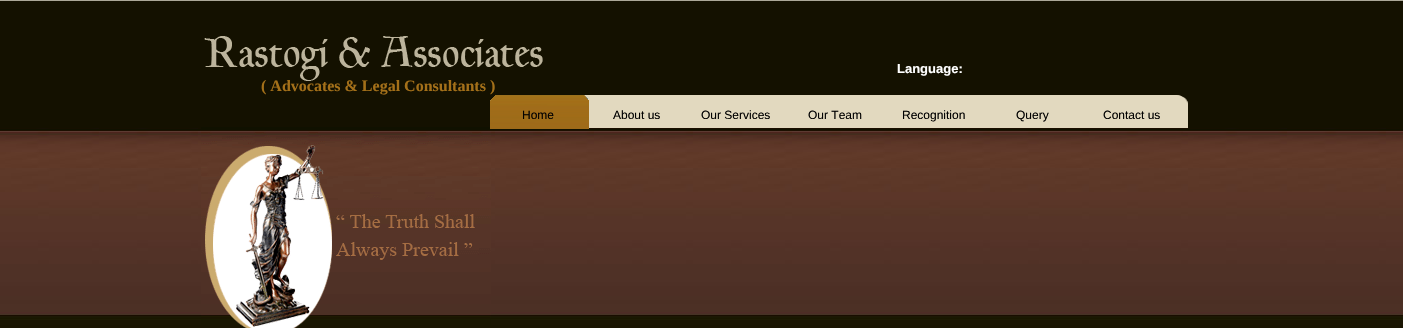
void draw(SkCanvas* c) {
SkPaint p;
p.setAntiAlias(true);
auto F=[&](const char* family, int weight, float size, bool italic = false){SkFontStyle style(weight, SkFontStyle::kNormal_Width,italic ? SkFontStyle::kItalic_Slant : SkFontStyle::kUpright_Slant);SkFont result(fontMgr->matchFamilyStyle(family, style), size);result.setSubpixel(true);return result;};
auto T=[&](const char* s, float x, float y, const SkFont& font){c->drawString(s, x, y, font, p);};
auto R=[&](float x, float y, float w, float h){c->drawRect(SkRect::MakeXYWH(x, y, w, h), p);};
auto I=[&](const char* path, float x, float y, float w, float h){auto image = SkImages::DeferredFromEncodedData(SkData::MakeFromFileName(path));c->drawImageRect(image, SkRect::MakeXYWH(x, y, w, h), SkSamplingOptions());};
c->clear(0xffffffff);
I("1.png",0,0,1403,328);
I("2.png",204,36,339,45);
auto f1 = F("Liberation Sans",700,13);
p.setColor(0xffffffff);
T("Language:",897,73,f1);
auto f2 = F("Liberation Serif",700,16);
p.setColor(0xffa47019);
T("( Advocates & Legal Consultants )",261,91,f2);
I("3.png",491,95,697,34);
p.setColor(0xff101100);
R(201,127,290,2);
I("4.png",490,95,99,34);
auto f3 = F("Liberation Sans",400,12);
p.setColor(0xff000000);
T("Home",522,119,f3);
T("About us",613,119,f3);
T("Our Services",701,119,f3);
T("Our Team",808,119,f3);
T("Recognition",902,119,f3);
T("Query",1016,119,f3);
T("Contact us",1103,119,f3);
I("5.png",201,131,290,197);
I("6.png",1183,131,5,2);
}
